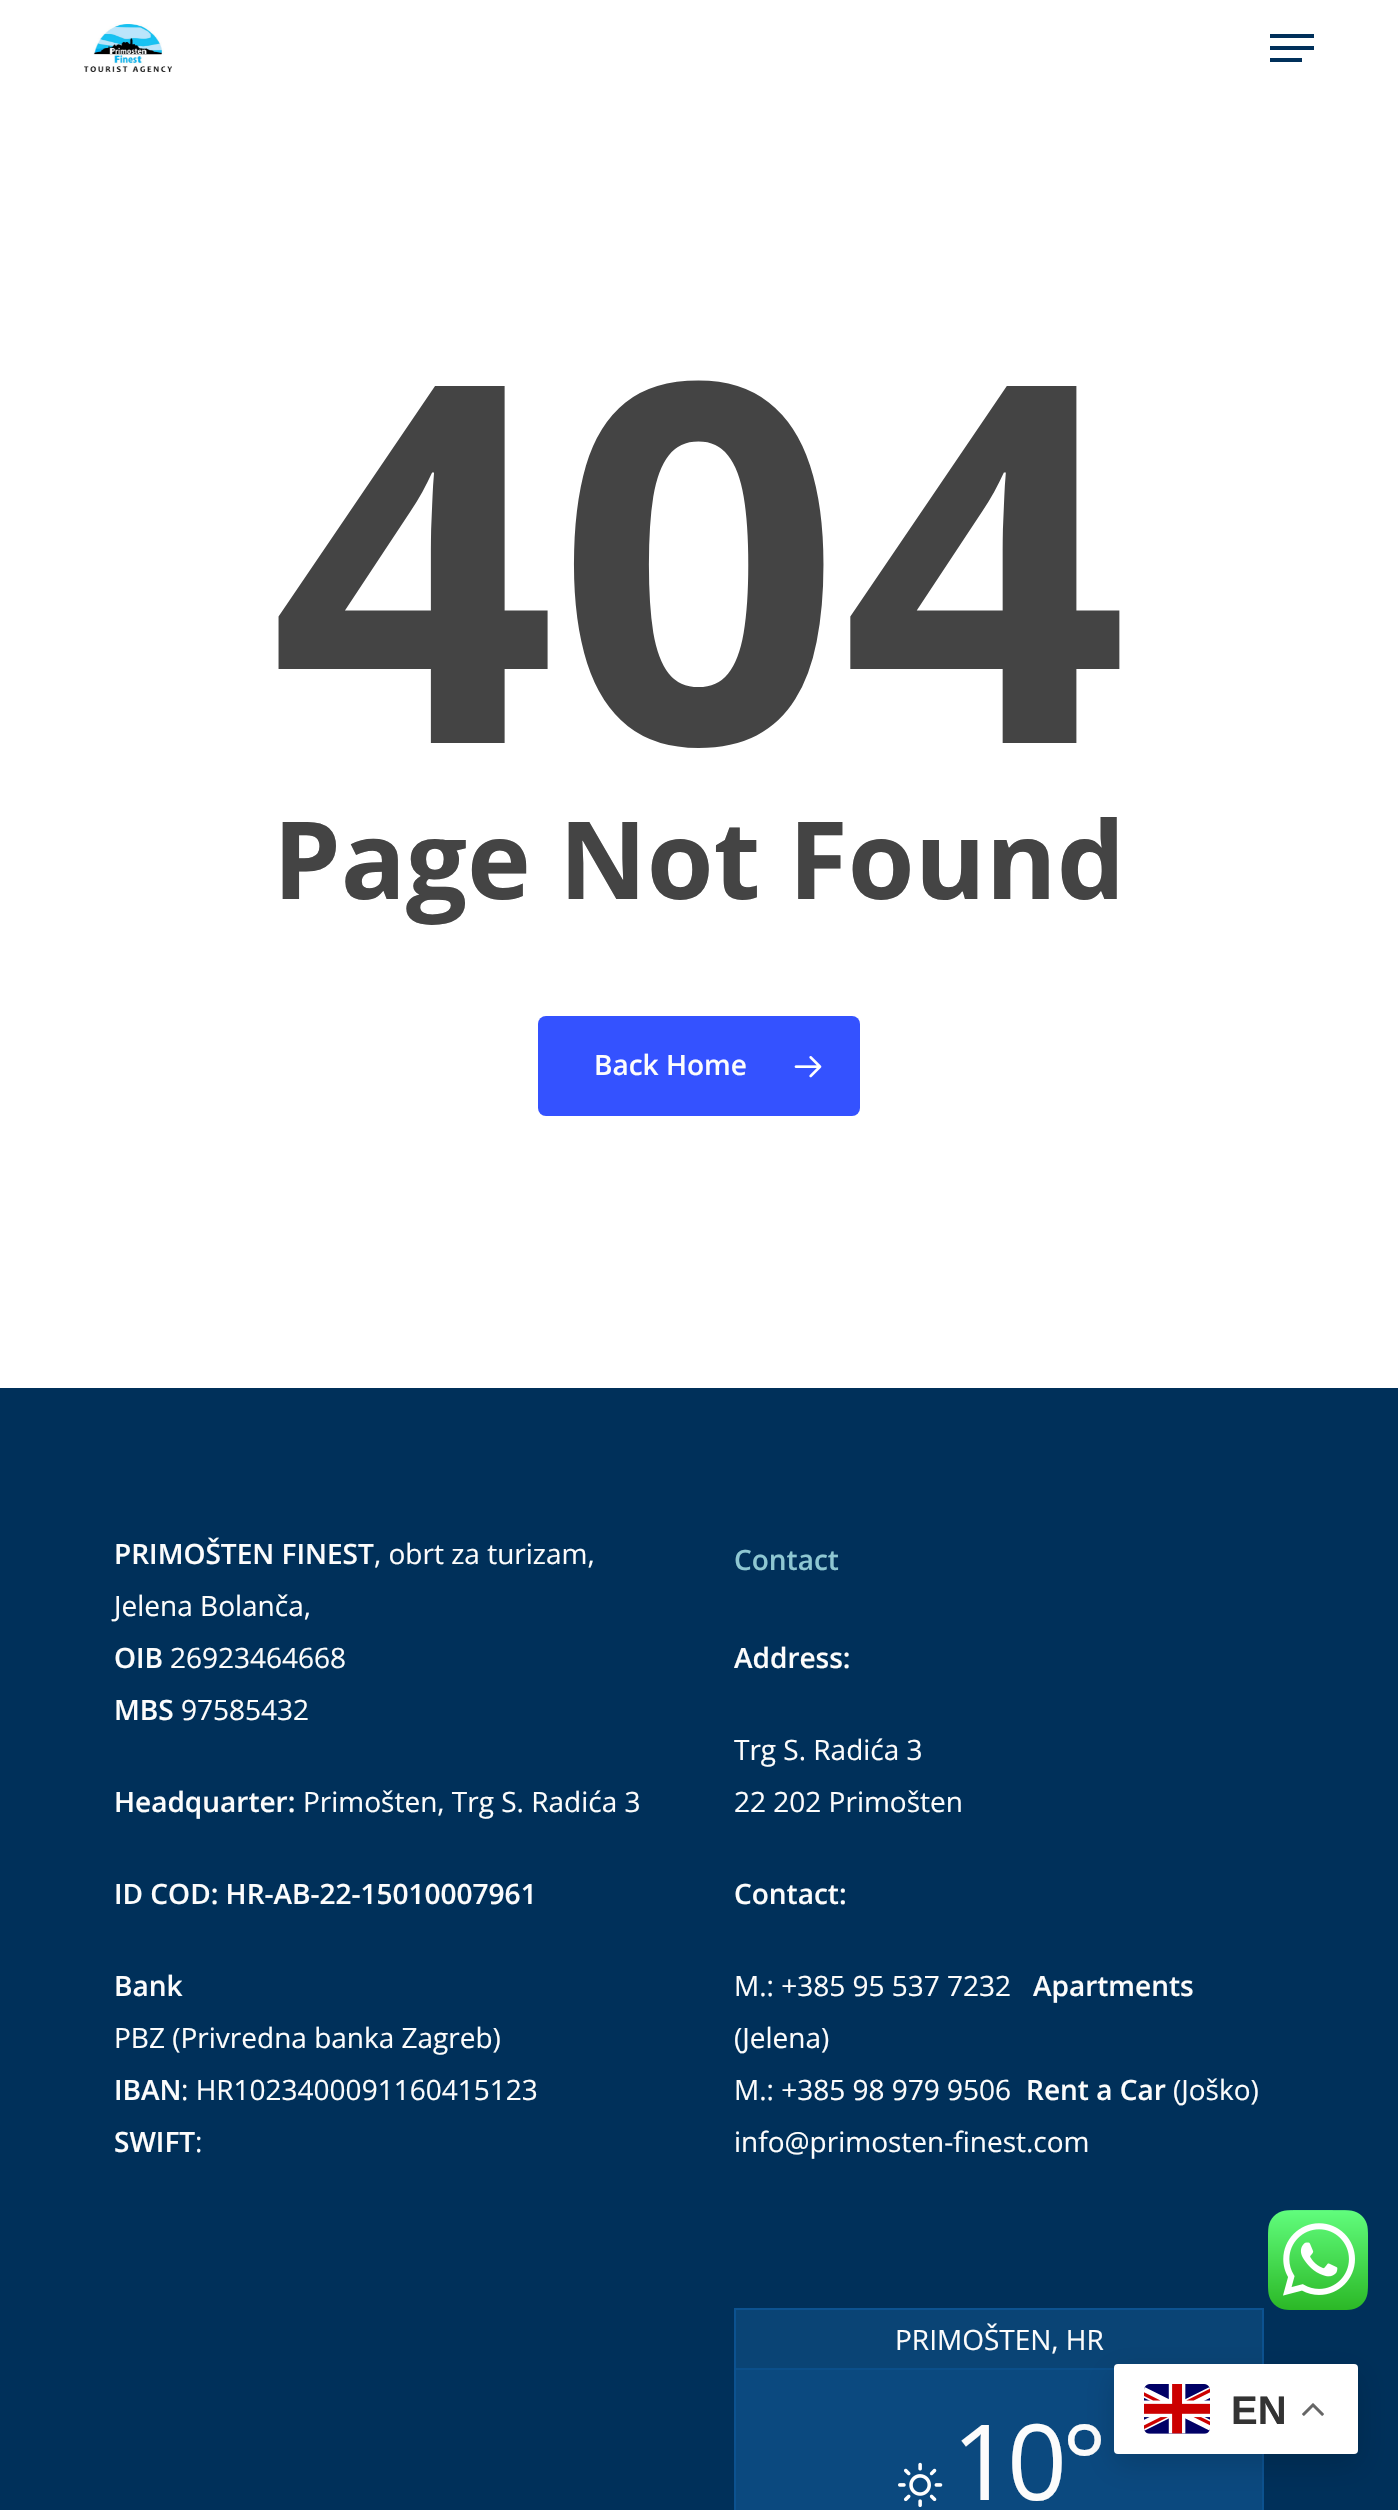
void draw(SkCanvas* c) {
SkPaint p;
p.setAntiAlias(true);
auto F=[&](const char* family, int weight, float size, bool italic = false){SkFontStyle style(weight, SkFontStyle::kNormal_Width,italic ? SkFontStyle::kItalic_Slant : SkFontStyle::kUpright_Slant);SkFont result(fontMgr->matchFamilyStyle(family, style), size);result.setSubpixel(true);return result;};
auto T=[&](const char* s, float x, float y, const SkFont& font){c->drawString(s, x, y, font, p);};
auto L=[&](const char* s, float x, float y, const SkFont& font, const SkPaint& ink, float letter, float word){std::vector<SkGlyphID> glyphs(font.countText(s, strlen(s), SkTextEncoding::kUTF8));std::vector<float> xs(glyphs.size());font.textToGlyphs(s, strlen(s), SkTextEncoding::kUTF8, glyphs);font.getXPos(glyphs, xs, x);float extra = 0;for (size_t i = 0; i < glyphs.size(); i++) {xs[i] += extra;extra += letter + word * (glyphs[i] == font.unicharToGlyph(' '));}c->drawTextBlob(SkTextBlob::MakeFromPosHGlyphs(glyphs, xs, y, font), 0, 0, ink);};
auto R=[&](float x, float y, float w, float h){c->drawRect(SkRect::MakeXYWH(x, y, w, h), p);};
auto Q=[&](float x, float y, float w, float h, float radius){c->drawRoundRect(SkRect::MakeXYWH(x, y, w, h), radius, radius, p);};
auto I=[&](const char* path, float x, float y, float w, float h){auto image = SkImages::DeferredFromEncodedData(SkData::MakeFromFileName(path));c->drawImageRect(image, SkRect::MakeXYWH(x, y, w, h), SkSamplingOptions());};
c->clear(0xffffffff);
I("1.png",84,24,88,48);
p.setColor(0xff00305a);
R(1270,34,44,4);
R(1270,58,32,4);
R(1270,46,44,4);
auto f1 = F("Open Sans",700,500);
p.setColor(0xff444444);
T("404",270,743,f1);
auto f2 = F("Open Sans",700,108);
T("Page Not Found",273,899,f2);
p.setColor(0xff3452ff);
Q(538,1016,322,100,8);
auto f3 = F("Open Sans",600,28);
p.setColor(0xfffcfcfc);
T("Back Home",594,1075,f3);
I("2.png",794,1056,28,22);
p.setColor(0xff00305a);
R(0,1388,1398,1122);
p.setColor(0xfffcfcfc);
T("PRIMOŠTEN FINEST",114,1564,f3);
auto f4 = F("Open Sans",400,28);
T(", obrt za turizam,",374,1564,f4);
T("Jelena Bolanča,",114,1616,f4);
T("OIB",114,1668,f3);
T("26923464668",170,1668,f4);
T("MBS",114,1720,f3);
T("97585432",181,1720,f4);
T("Headquarter:",114,1812,f3);
T("Primošten, Trg S. Radića 3",303,1812,f4);
T("ID COD: HR-AB-22-15010007961",114,1904,f3);
T("Bank",114,1996,f3);
T("PBZ (Privredna banka Zagreb)",114,2048,f4);
T("IBAN",114,2100,f3);
T(": HR1023400091160415123",181,2100,f4);
T("SWIFT",114,2152,f3);
T(":",195,2152,f4);
p.setColor(0xff8ec7d2);
T("Contact",734,1570,f3);
p.setColor(0xfffcfcfc);
T("Address:",734,1668,f3);
T("Trg S. Radića 3",734,1760,f4);
T("22 202 Primošten",734,1812,f4);
T("Contact:",734,1904,f3);
T("M.: +385 95 537 7232",734,1996,f4);
T("Apartments",1033,1996,f3);
T("(Jelena)",734,2048,f4);
T("M.: +385 98 979 9506",734,2100,f4);
T("Rent a Car",1026,2100,f3);
T("(Joško)",1173,2100,f4);
T("info@primosten-finest.com",734,2152,f4);
p.setColor(0xff0b497f);
R(736,2370,526,140);
p.setStroke(true);
p.setStrokeWidth(2);
p.setColor(0xff0c5290);
c->drawRect(SkRect::MakeXYWH(735,2309,528,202),p);
p.setStroke(false);
p.setColor(0xff0a4475);
R(736,2310,526,58);
p.setColor(0xff0b4f8a);
R(736,2368,378,2);
p.setColor(0xfffcfcfc);
T("PRIMOŠTEN, HR",895,2350,f4);
I("3.png",898,2462,45,46);
auto f5 = F("Open Sans",400,105);
L("10°",952,2500,f5,p,-5,0);
I("4.png",1268,2210,100,100);
p.setColor(0x26000000);
p.setMaskFilter(SkMaskFilter::MakeBlur(kNormal_SkBlurStyle, 15));
c->drawRoundRect(SkRect::MakeXYWH(1114,2374,244,90),4,4,p);
p.setMaskFilter(nullptr);
p.setColor(0xffffffff);
Q(1114,2364,244,90,4);
I("5.png",1144,2384,66,50);
auto f6 = F("Liberation Sans",700,40);
p.setColor(0xff333333);
T("EN",1231,2424,f6);
I("6.png",1302,2403,22,13);
}
